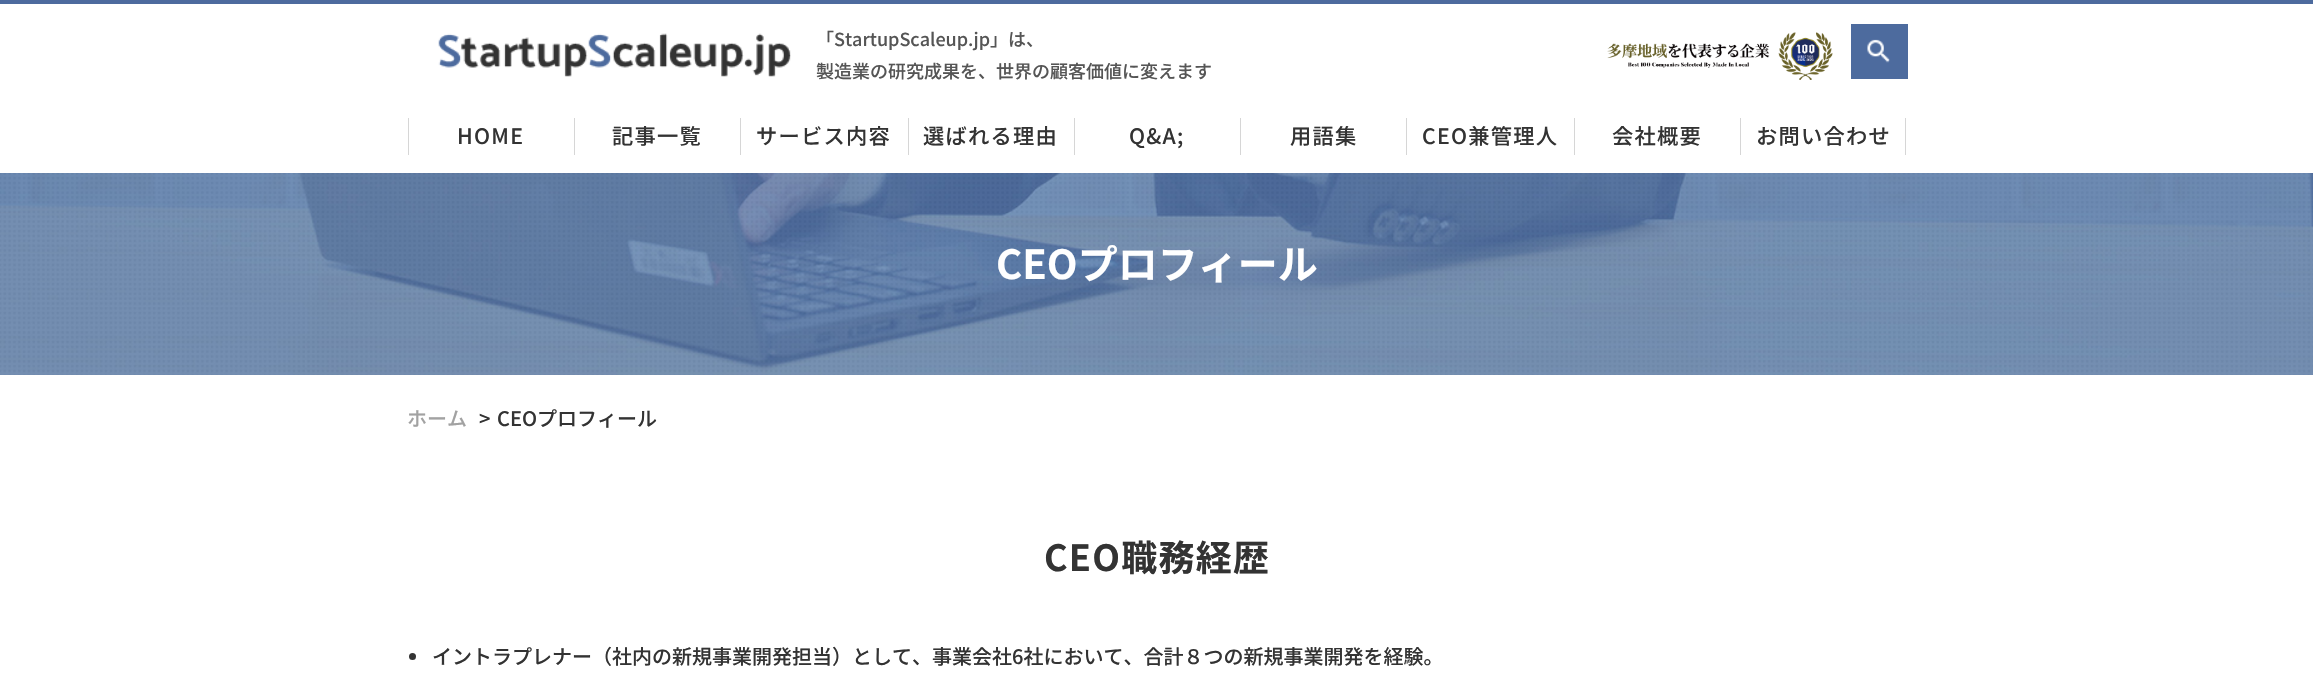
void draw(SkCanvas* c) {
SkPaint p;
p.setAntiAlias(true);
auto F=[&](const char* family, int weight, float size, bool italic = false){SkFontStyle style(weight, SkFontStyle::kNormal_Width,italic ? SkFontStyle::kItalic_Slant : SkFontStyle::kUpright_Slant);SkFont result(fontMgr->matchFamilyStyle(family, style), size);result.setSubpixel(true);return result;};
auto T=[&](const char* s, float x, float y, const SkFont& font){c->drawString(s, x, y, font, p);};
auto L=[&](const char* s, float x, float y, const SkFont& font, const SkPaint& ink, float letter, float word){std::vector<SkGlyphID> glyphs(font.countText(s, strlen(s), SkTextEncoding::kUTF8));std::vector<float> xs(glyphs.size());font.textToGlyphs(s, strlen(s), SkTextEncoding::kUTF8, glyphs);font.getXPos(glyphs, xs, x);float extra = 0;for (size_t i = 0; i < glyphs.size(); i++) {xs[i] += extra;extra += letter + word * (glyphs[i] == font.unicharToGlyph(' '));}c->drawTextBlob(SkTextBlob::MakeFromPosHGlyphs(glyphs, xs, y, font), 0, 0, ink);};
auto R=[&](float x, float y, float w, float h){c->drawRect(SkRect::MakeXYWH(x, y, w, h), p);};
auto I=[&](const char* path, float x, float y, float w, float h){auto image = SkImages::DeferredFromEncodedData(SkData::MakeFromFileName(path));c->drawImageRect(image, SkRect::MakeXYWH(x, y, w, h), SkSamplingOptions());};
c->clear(0xffffffff);
p.setColor(0xff4d6b9e);
R(0,0,2313,4);
I("1.png",438,33,353,44);
auto f1 = F("Noto Sans JP",500,18);
p.setColor(0xff555555);
T("「StartupScaleup.jp」は、",816,46,f1);
T("製造業の研究成果を、世界の顧客価値に変えます",816,78,f1);
I("2.png",1607,32,226,48);
p.setColor(0xff4d6b9e);
R(1851,24,57,55);
I("3.png",1867,39,23,24);
p.setColor(0xffd6d6d6);
R(408,118,1,37);
auto f2 = F("Noto Sans JP",500,21.25);
p.setColor(0xff333333);
L("HOME",457,144,f2,p,1.25,0);
p.setColor(0xffd6d6d6);
R(574,118,1,37);
p.setColor(0xff333333);
L("記事一覧",612,144,f2,p,1.25,0);
p.setColor(0xffd6d6d6);
R(740,118,1,37);
p.setColor(0xff333333);
L("サービス内容",756,144,f2,p,1.25,0);
p.setColor(0xffd6d6d6);
R(908,118,1,37);
p.setColor(0xff333333);
L("選ばれる理由",923,144,f2,p,1.25,0);
p.setColor(0xffd6d6d6);
R(1074,118,1,37);
p.setColor(0xff333333);
L("Q&A;",1129,144,f2,p,1.25,0);
p.setColor(0xffd6d6d6);
R(1240,118,1,37);
p.setColor(0xff333333);
L("用語集",1290,144,f2,p,1.25,0);
p.setColor(0xffd6d6d6);
R(1406,118,1,37);
p.setColor(0xff333333);
L("CEO兼管理人",1422,144,f2,p,1.25,0);
p.setColor(0xffd6d6d6);
R(1574,118,1,37);
p.setColor(0xff333333);
L("会社概要",1612,144,f2,p,1.25,0);
p.setColor(0xffd6d6d6);
R(1740,118,1,37);
p.setColor(0xff333333);
L("お問い合わせ",1756,144,f2,p,1.25,0);
p.setColor(0xffd6d6d6);
R(1905,118,1,37);
I("4.png",0,173,2313,202);
auto f3 = F("Noto Sans JP",700,40);
p.setColor(0xffffffff);
T("CEOプロフィール",996,279,f3);
auto f4 = F("Noto Sans JP",500,20);
p.setColor(0xffa2a2a2);
T("ホーム",407,426,f4);
p.setColor(0xff333333);
T(">",479,426,f4);
T("CEOプロフィール",497,426,f4);
auto f5 = F("Noto Sans JP",700,36);
L("CEO職務経歴",1044,571,f5,p,1.25,0);
c->drawCircle(412.5,656.5,3.5,p);
T("イントラプレナー（社内の新規事業開発担当）として、事業会社6社において、合計８つの新規事業開発を経験。",432,664,f4);
}
